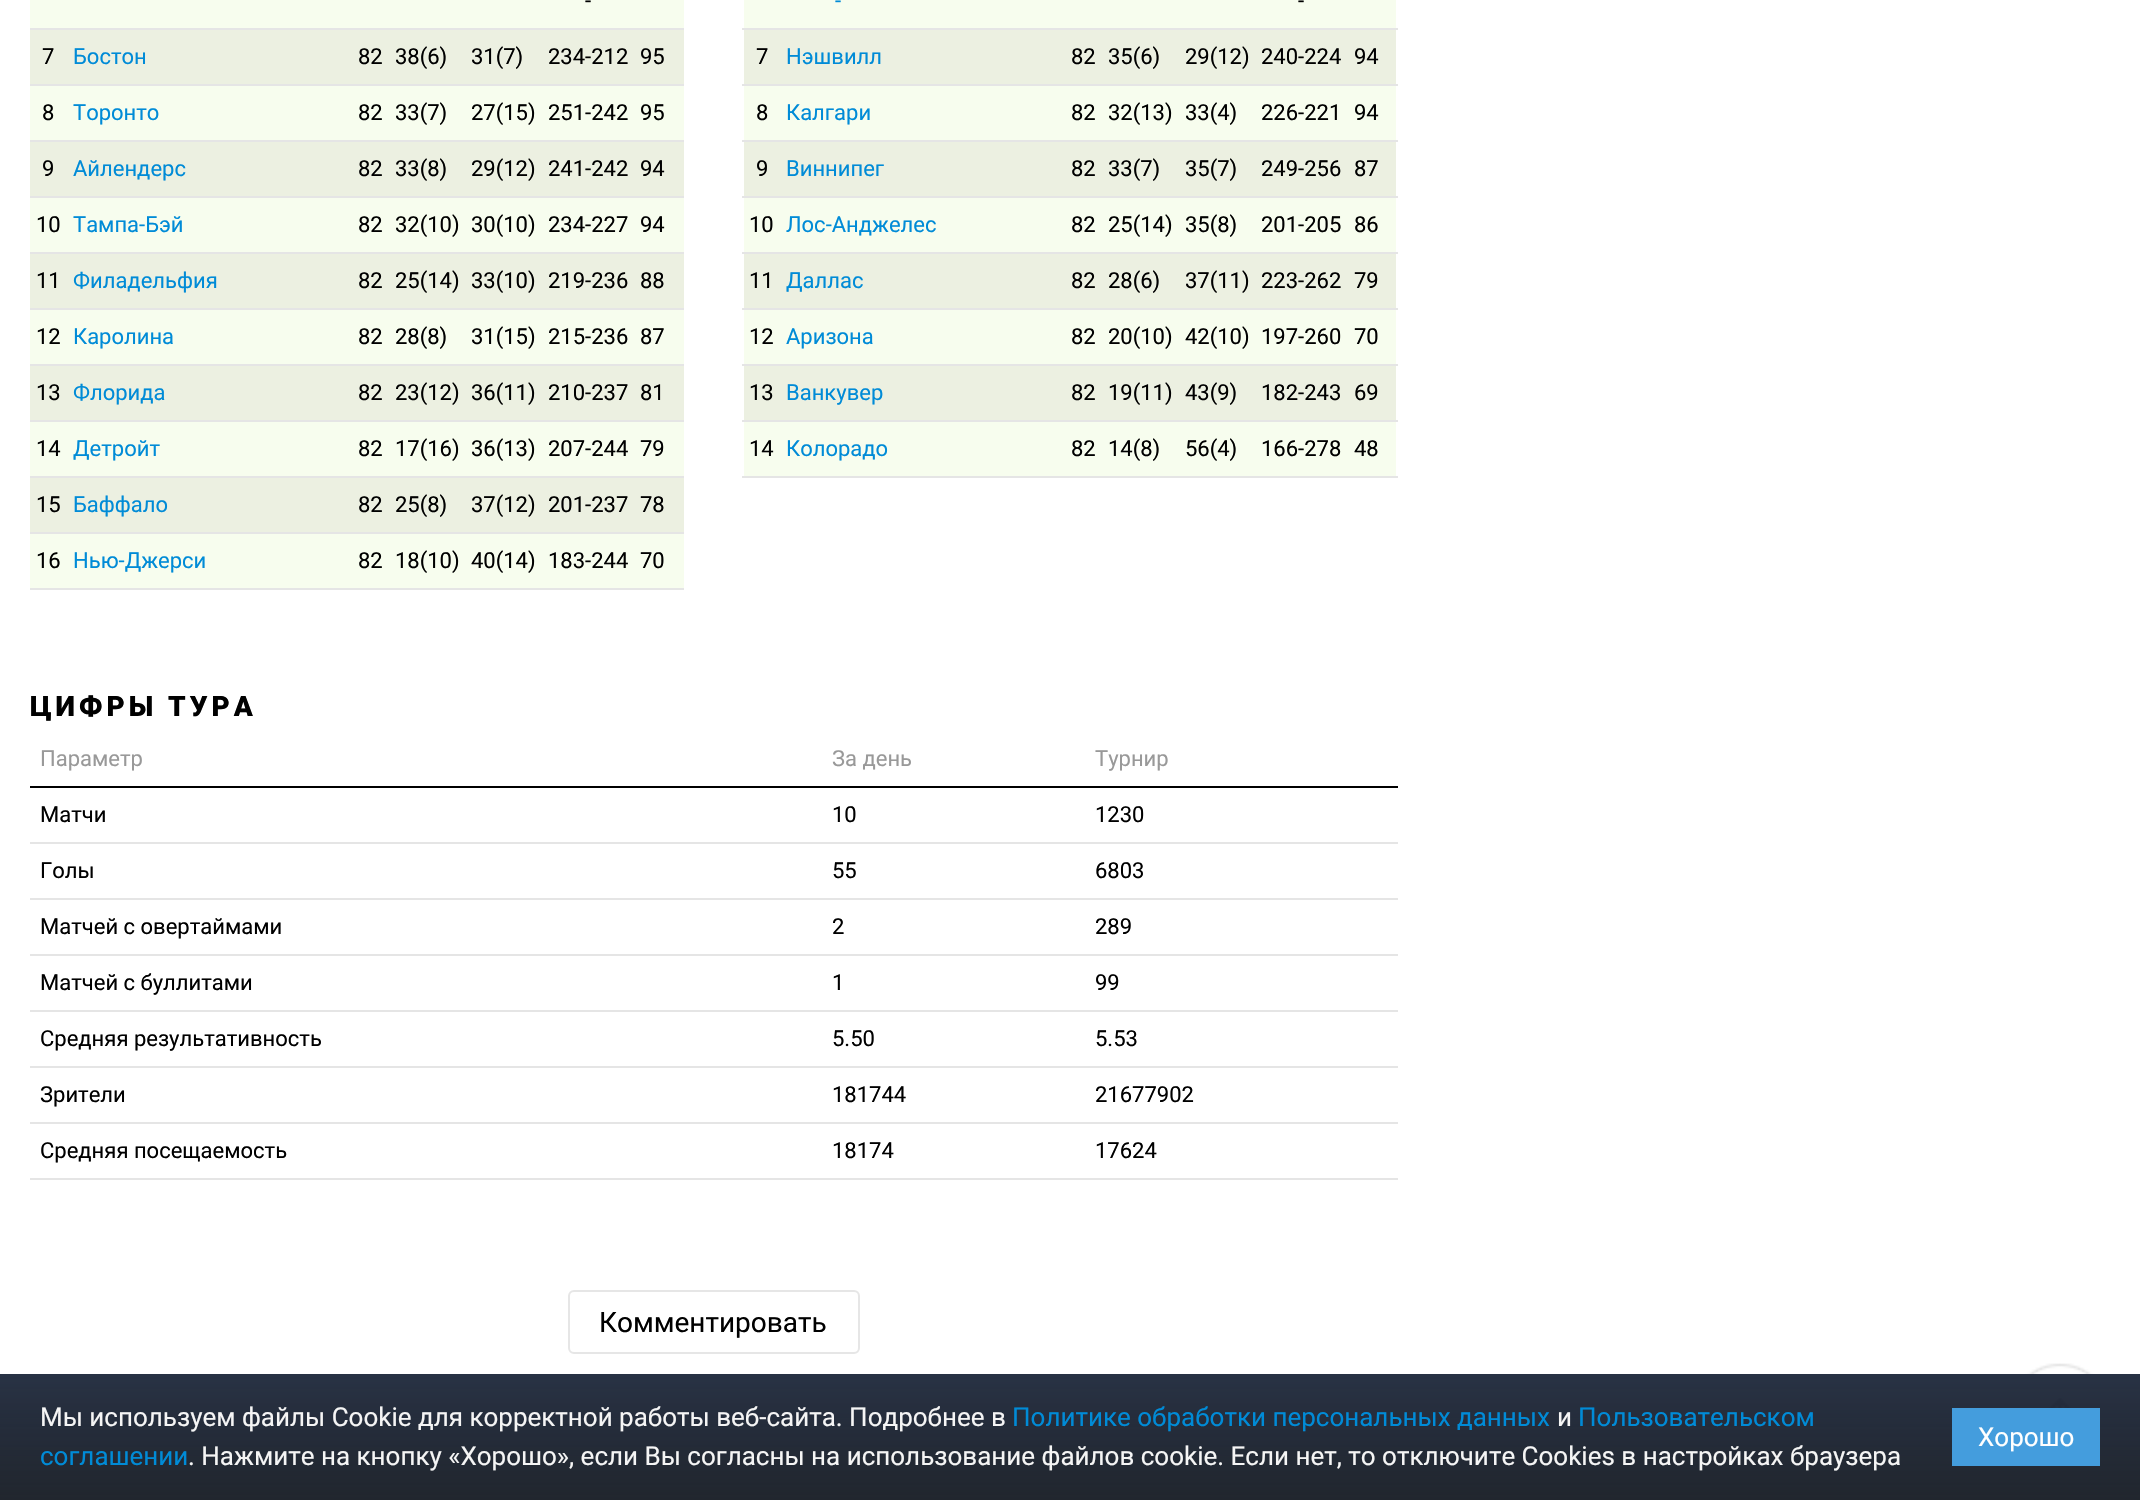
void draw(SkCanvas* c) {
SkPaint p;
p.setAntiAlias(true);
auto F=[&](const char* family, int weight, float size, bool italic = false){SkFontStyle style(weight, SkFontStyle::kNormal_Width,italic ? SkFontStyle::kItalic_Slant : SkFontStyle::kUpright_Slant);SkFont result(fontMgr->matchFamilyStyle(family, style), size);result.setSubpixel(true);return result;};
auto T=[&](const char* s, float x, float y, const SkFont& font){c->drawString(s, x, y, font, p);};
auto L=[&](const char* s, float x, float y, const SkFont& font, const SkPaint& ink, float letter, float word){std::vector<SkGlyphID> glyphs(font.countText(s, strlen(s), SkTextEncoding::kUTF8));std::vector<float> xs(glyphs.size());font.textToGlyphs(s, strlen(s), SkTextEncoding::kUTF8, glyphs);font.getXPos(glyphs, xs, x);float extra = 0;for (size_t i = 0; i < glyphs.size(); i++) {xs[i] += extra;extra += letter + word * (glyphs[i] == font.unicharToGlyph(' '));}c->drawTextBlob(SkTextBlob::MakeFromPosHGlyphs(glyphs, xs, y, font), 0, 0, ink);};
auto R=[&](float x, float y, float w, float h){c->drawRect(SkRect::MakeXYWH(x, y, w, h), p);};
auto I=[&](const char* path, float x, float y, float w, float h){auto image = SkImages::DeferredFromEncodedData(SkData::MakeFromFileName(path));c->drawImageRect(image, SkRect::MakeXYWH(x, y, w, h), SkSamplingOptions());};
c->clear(0xffffffff);
p.setColor(0xfff7fdee);
R(30,0,654,28);
p.setColor(0xffe5e5e5);
R(30,28,654,2);
auto f1 = F("Roboto",400,22);
p.setColor(0xff000000);
T("-",585,8,f1);
p.setColor(0xffecf0e1);
R(30,30,654,54);
p.setColor(0xffe5e5e5);
R(30,84,654,2);
p.setColor(0xff000000);
T("7",42,64,f1);
p.setColor(0xff008bd7);
T("Бостон",73,64,f1);
p.setColor(0xff000000);
T("82",358,64,f1);
T("38(6)",395,64,f1);
T("31(7)",471,64,f1);
T("234-212",548,64,f1);
T("95",640,64,f1);
p.setColor(0xfff7fdee);
R(30,86,654,54);
p.setColor(0xffe5e5e5);
R(30,140,654,2);
p.setColor(0xff000000);
T("8",42,120,f1);
p.setColor(0xff008bd7);
T("Торонто",73,120,f1);
p.setColor(0xff000000);
T("82",358,120,f1);
T("33(7)",395,120,f1);
T("27(15)",471,120,f1);
T("251-242",548,120,f1);
T("95",640,120,f1);
p.setColor(0xffecf0e1);
R(30,142,654,54);
p.setColor(0xffe5e5e5);
R(30,196,654,2);
p.setColor(0xff000000);
T("9",42,176,f1);
p.setColor(0xff008bd7);
T("Айлендерс",73,176,f1);
p.setColor(0xff000000);
T("82",358,176,f1);
T("33(8)",395,176,f1);
T("29(12)",471,176,f1);
T("241-242",548,176,f1);
T("94",640,176,f1);
p.setColor(0xfff7fdee);
R(30,198,654,54);
p.setColor(0xffe5e5e5);
R(30,252,654,2);
p.setColor(0xff000000);
T("10",36,232,f1);
p.setColor(0xff008bd7);
T("Тампа-Бэй",73,232,f1);
p.setColor(0xff000000);
T("82",358,232,f1);
T("32(10)",395,232,f1);
T("30(10)",471,232,f1);
T("234-227",548,232,f1);
T("94",640,232,f1);
p.setColor(0xffecf0e1);
R(30,254,654,54);
p.setColor(0xffe5e5e5);
R(30,308,654,2);
p.setColor(0xff000000);
T("11",36,288,f1);
p.setColor(0xff008bd7);
T("Филадельфия",73,288,f1);
p.setColor(0xff000000);
T("82",358,288,f1);
T("25(14)",395,288,f1);
T("33(10)",471,288,f1);
T("219-236",548,288,f1);
T("88",640,288,f1);
p.setColor(0xfff7fdee);
R(30,310,654,54);
p.setColor(0xffe5e5e5);
R(30,364,654,2);
p.setColor(0xff000000);
T("12",36,344,f1);
p.setColor(0xff008bd7);
T("Каролина",73,344,f1);
p.setColor(0xff000000);
T("82",358,344,f1);
T("28(8)",395,344,f1);
T("31(15)",471,344,f1);
T("215-236",548,344,f1);
T("87",640,344,f1);
p.setColor(0xffecf0e1);
R(30,366,654,54);
p.setColor(0xffe5e5e5);
R(30,420,654,2);
p.setColor(0xff000000);
T("13",36,400,f1);
p.setColor(0xff008bd7);
T("Флорида",73,400,f1);
p.setColor(0xff000000);
T("82",358,400,f1);
T("23(12)",395,400,f1);
T("36(11)",471,400,f1);
T("210-237",548,400,f1);
T("81",640,400,f1);
p.setColor(0xfff7fdee);
R(30,422,654,54);
p.setColor(0xffe5e5e5);
R(30,476,654,2);
p.setColor(0xff000000);
T("14",36,456,f1);
p.setColor(0xff008bd7);
T("Детройт",73,456,f1);
p.setColor(0xff000000);
T("82",358,456,f1);
T("17(16)",395,456,f1);
T("36(13)",471,456,f1);
T("207-244",548,456,f1);
T("79",640,456,f1);
p.setColor(0xffecf0e1);
R(30,478,654,54);
p.setColor(0xffe5e5e5);
R(30,532,654,2);
p.setColor(0xff000000);
T("15",36,512,f1);
p.setColor(0xff008bd7);
T("Баффало",73,512,f1);
p.setColor(0xff000000);
T("82",358,512,f1);
T("25(8)",395,512,f1);
T("37(12)",471,512,f1);
T("201-237",548,512,f1);
T("78",640,512,f1);
p.setColor(0xfff7fdee);
R(30,534,654,54);
p.setColor(0xffe5e5e5);
R(30,588,654,2);
p.setColor(0xff000000);
T("16",36,568,f1);
p.setColor(0xff008bd7);
T("Нью-Джерси",73,568,f1);
p.setColor(0xff000000);
T("82",358,568,f1);
T("18(10)",395,568,f1);
T("40(14)",471,568,f1);
T("183-244",548,568,f1);
T("70",640,568,f1);
p.setColor(0xfff7fdee);
R(744,0,652,28);
p.setColor(0xffe5e5e5);
R(742,28,656,2);
p.setColor(0xff008bd7);
T("-",835,8,f1);
p.setColor(0xff000000);
T("-",1298,8,f1);
p.setColor(0xffecf0e1);
R(744,30,652,54);
p.setColor(0xffe5e5e5);
R(742,84,656,2);
p.setColor(0xff000000);
T("7",756,64,f1);
p.setColor(0xff008bd7);
T("Нэшвилл",786,64,f1);
p.setColor(0xff000000);
T("82",1071,64,f1);
T("35(6)",1108,64,f1);
T("29(12)",1185,64,f1);
T("240-224",1261,64,f1);
T("94",1354,64,f1);
p.setColor(0xfff7fdee);
R(744,86,652,54);
p.setColor(0xffe5e5e5);
R(742,140,656,2);
p.setColor(0xff000000);
T("8",756,120,f1);
p.setColor(0xff008bd7);
T("Калгари",786,120,f1);
p.setColor(0xff000000);
T("82",1071,120,f1);
T("32(13)",1108,120,f1);
T("33(4)",1185,120,f1);
T("226-221",1261,120,f1);
T("94",1354,120,f1);
p.setColor(0xffecf0e1);
R(744,142,652,54);
p.setColor(0xffe5e5e5);
R(742,196,656,2);
p.setColor(0xff000000);
T("9",756,176,f1);
p.setColor(0xff008bd7);
T("Виннипег",786,176,f1);
p.setColor(0xff000000);
T("82",1071,176,f1);
T("33(7)",1108,176,f1);
T("35(7)",1185,176,f1);
T("249-256",1261,176,f1);
T("87",1354,176,f1);
p.setColor(0xfff7fdee);
R(744,198,652,54);
p.setColor(0xffe5e5e5);
R(742,252,656,2);
p.setColor(0xff000000);
T("10",749,232,f1);
p.setColor(0xff008bd7);
T("Лос-Анджелес",786,232,f1);
p.setColor(0xff000000);
T("82",1071,232,f1);
T("25(14)",1108,232,f1);
T("35(8)",1185,232,f1);
T("201-205",1261,232,f1);
T("86",1354,232,f1);
p.setColor(0xffecf0e1);
R(744,254,652,54);
p.setColor(0xffe5e5e5);
R(742,308,656,2);
p.setColor(0xff000000);
T("11",749,288,f1);
p.setColor(0xff008bd7);
T("Даллас",786,288,f1);
p.setColor(0xff000000);
T("82",1071,288,f1);
T("28(6)",1108,288,f1);
T("37(11)",1185,288,f1);
T("223-262",1261,288,f1);
T("79",1354,288,f1);
p.setColor(0xfff7fdee);
R(744,310,652,54);
p.setColor(0xffe5e5e5);
R(742,364,656,2);
p.setColor(0xff000000);
T("12",749,344,f1);
p.setColor(0xff008bd7);
T("Аризона",786,344,f1);
p.setColor(0xff000000);
T("82",1071,344,f1);
T("20(10)",1108,344,f1);
T("42(10)",1185,344,f1);
T("197-260",1261,344,f1);
T("70",1354,344,f1);
p.setColor(0xffecf0e1);
R(744,366,652,54);
p.setColor(0xffe5e5e5);
R(742,420,656,2);
p.setColor(0xff000000);
T("13",749,400,f1);
p.setColor(0xff008bd7);
T("Ванкувер",786,400,f1);
p.setColor(0xff000000);
T("82",1071,400,f1);
T("19(11)",1108,400,f1);
T("43(9)",1185,400,f1);
T("182-243",1261,400,f1);
T("69",1354,400,f1);
p.setColor(0xfff7fdee);
R(744,422,652,54);
p.setColor(0xffe5e5e5);
R(742,476,656,2);
p.setColor(0xff000000);
T("14",749,456,f1);
p.setColor(0xff008bd7);
T("Колорадо",786,456,f1);
p.setColor(0xff000000);
T("82",1071,456,f1);
T("14(8)",1108,456,f1);
T("56(4)",1185,456,f1);
T("166-278",1261,456,f1);
T("48",1354,456,f1);
auto f2 = F("Roboto",900,28);
L("ЦИФРЫ ТУРА",30,716,f2,p,4,0);
p.setColor(0xff999999);
T("Параметр",40,766,f1);
T("За день",832,766,f1);
p.setColor(0xff000000);
R(30,786,1368,2);
p.setColor(0xff999999);
T("Турнир",1095,766,f1);
p.setColor(0xffe5e5e5);
R(30,842,1368,2);
p.setColor(0xff000000);
T("Матчи",40,822,f1);
T("10",832,822,f1);
T("1230",1095,822,f1);
p.setColor(0xffe5e5e5);
R(30,898,1368,2);
p.setColor(0xff000000);
T("Голы",40,878,f1);
T("55",832,878,f1);
T("6803",1095,878,f1);
p.setColor(0xffe5e5e5);
R(30,954,1368,2);
p.setColor(0xff000000);
T("Матчей с овертаймами",40,934,f1);
T("2",832,934,f1);
T("289",1095,934,f1);
p.setColor(0xffe5e5e5);
R(30,1010,1368,2);
p.setColor(0xff000000);
T("Матчей с буллитами",40,990,f1);
T("1",832,990,f1);
T("99",1095,990,f1);
p.setColor(0xffe5e5e5);
R(30,1066,1368,2);
p.setColor(0xff000000);
T("Средняя результативность",40,1046,f1);
T("5.50",832,1046,f1);
T("5.53",1095,1046,f1);
p.setColor(0xffe5e5e5);
R(30,1122,1368,2);
p.setColor(0xff000000);
T("Зрители",40,1102,f1);
T("181744",832,1102,f1);
T("21677902",1095,1102,f1);
p.setColor(0xffe5e5e5);
R(30,1178,1368,2);
p.setColor(0xff000000);
T("Средняя посещаемость",40,1158,f1);
T("18174",832,1158,f1);
T("17624",1095,1158,f1);
p.setColor(0xffd9d9d9);
R(0,1394,1426,2);
p.setStroke(true);
p.setStrokeWidth(2);
p.setColor(0xffe6e6e6);
c->drawRoundRect(SkRect::MakeXYWH(569,1291,290,62),5,5,p);
auto f3 = F("Roboto",400,28);
p.setStroke(false);
p.setColor(0xff000000);
T("Комментировать",599,1332,f3);
I("1.png",2009,1363,102,107);
{
const SkColor colors[] = {0xff283244,0xf2151a23};
const float stops[] = {0,1};
const SkPoint ends[] = {{1070,1374}, {1070,1500}};
p.setShader(SkGradientShader::MakeLinear(ends, colors, stops, 2, SkTileMode::kClamp));
p.setAlpha(255);
}
R(0,1374,2140,126);
auto f4 = F("Roboto",400,26);
p.setShader(nullptr);
p.setColor(0xfff5f5f5);
T("Мы используем файлы Сookie для корректной работы веб-сайта. Подробнее в",40,1426,f4);
p.setColor(0xff008bd7);
T("Политике обработки персональных данных",1012,1426,f4);
p.setColor(0xfff5f5f5);
T("и",1557,1426,f4);
p.setColor(0xff008bd7);
T("Пользовательском",1578,1426,f4);
T("соглашении",40,1465,f4);
p.setColor(0xfff5f5f5);
T(". Нажмите на кнопку «Хорошо», если Вы согласны на использование файлов cookie. Если нет, то отключите Cookies в настройках браузера",188,1465,f4);
p.setColor(0xff449ddd);
R(1952,1408,148,58);
p.setColor(0xffffffff);
T("Хорошо",1978,1446,f4);
}
